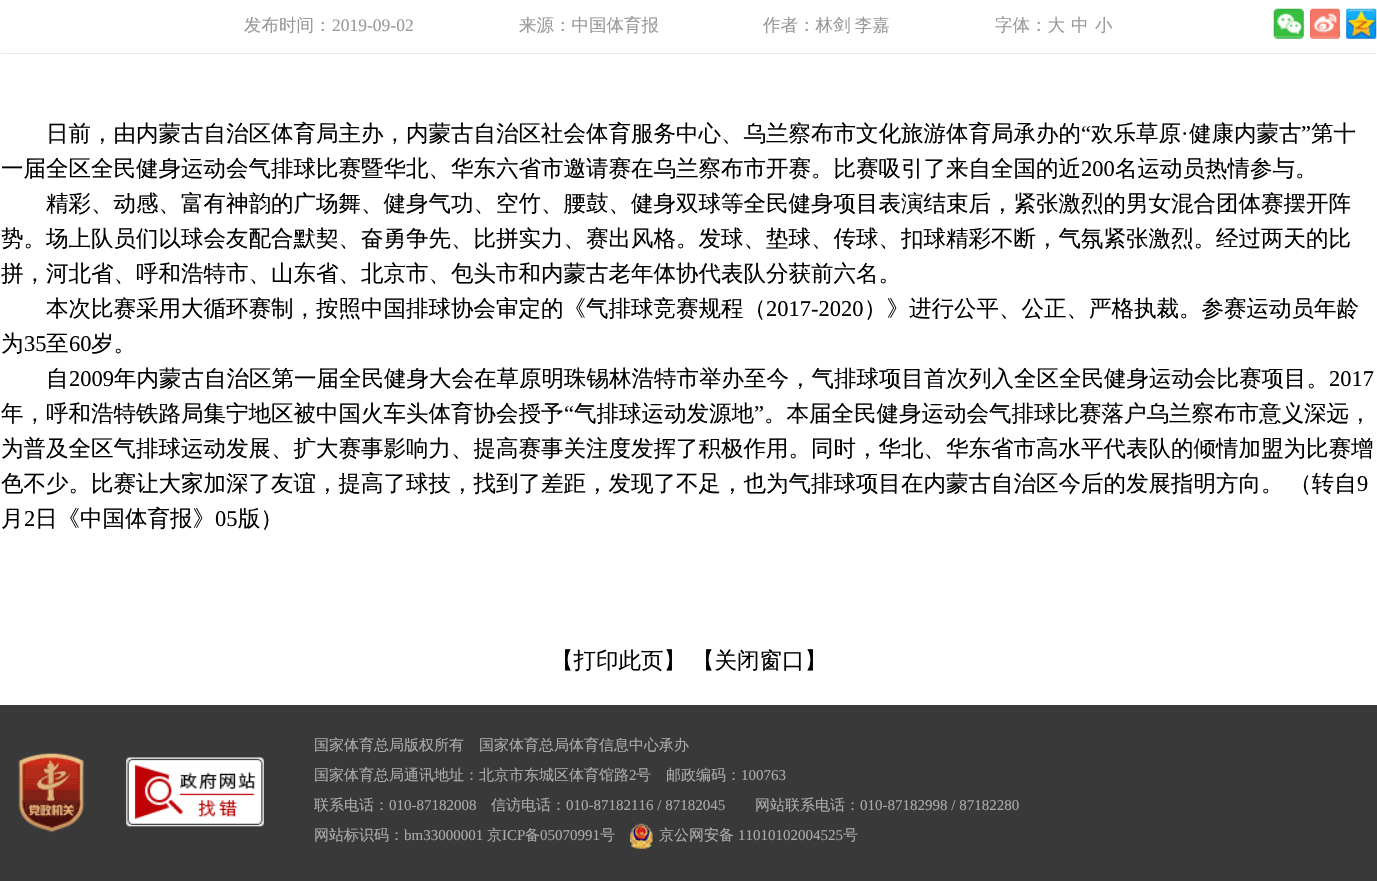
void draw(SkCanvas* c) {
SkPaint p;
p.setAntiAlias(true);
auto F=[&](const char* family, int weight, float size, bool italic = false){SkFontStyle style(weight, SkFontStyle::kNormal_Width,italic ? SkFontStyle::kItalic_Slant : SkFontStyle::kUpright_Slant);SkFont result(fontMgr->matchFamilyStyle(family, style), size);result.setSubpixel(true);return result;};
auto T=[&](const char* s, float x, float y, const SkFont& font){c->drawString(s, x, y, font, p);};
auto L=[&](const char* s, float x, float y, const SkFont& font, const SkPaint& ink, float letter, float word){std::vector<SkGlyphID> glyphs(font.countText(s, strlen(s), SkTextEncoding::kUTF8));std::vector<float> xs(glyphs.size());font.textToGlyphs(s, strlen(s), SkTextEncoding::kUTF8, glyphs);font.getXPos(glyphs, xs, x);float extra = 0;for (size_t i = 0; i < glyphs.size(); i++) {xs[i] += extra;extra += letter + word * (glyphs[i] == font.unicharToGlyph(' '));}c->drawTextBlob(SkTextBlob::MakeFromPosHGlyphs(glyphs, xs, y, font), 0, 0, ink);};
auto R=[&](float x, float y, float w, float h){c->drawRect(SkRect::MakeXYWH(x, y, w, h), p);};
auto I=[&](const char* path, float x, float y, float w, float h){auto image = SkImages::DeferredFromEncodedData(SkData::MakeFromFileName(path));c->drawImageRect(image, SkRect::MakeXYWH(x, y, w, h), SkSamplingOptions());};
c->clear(0xffffffff);
p.setColor(0xffe7e7e7);
R(1,53,1375,1);
auto f1 = F("WenQuanYi Zen Hei",500,17.5);
p.setColor(0xff999999);
T("发布时间：",244,31,f1);
auto f2 = F("Liberation Serif",400,17.5);
T("2019-09-02",332,31,f2);
T("来源：中国体育报",519,31,f1);
L("作者：林剑 李嘉",763,31,f1,p,0,-1);
T("字体：大",995,31,f1);
T("中",1071,31,f1);
T("小",1095,31,f1);
I("1.png",1273,8,31,31);
I("2.png",1310,8,30,31);
I("3.png",1346,8,31,31);
auto f3 = F("WenQuanYi Zen Hei",500,22.5);
p.setColor(0xff000000);
T("日前，由内蒙古自治区体育局主办，内蒙古自治区社会体育服务中心、乌兰察布市文化旅游体育局承办的",46,141,f3);
auto f4 = F("Liberation Serif",400,22.5);
T("“",1081,141,f4);
T("欢乐草原",1091,141,f3);
T("健康内蒙古",1189,141,f3);
T("”",1301,141,f4);
T("第十",1311,141,f3);
T("·",1181,141,f4);
T("一届全区全民健身运动会气排球比赛暨华北、华东六省市邀请赛在乌兰察布市开赛。比赛吸引了来自全国的近",1,176,f3);
T("200",1081,176,f4);
T("名运动员热情参与。",1115,176,f3);
T("精彩、动感、富有神韵的广场舞、健身气功、空竹、腰鼓、健身双球等全民健身项目表演结束后，紧张激烈的男女混合团体赛摆开阵",46,211,f3);
T("势。场上队员们以球会友配合默契、奋勇争先、比拼实力、赛出风格。发球、垫球、传球、扣球精彩不断，气氛紧张激烈。经过两天的比",1,246,f3);
T("拼，河北省、呼和浩特市、山东省、北京市、包头市和内蒙古老年体协代表队分获前六名。",1,281,f3);
T("本次比赛采用大循环赛制，按照中国排球协会审定的《气排球竞赛规程（",46,316,f3);
T("2017-2020",766,316,f4);
T("）》进行公平、公正、严格执裁。参赛运动员年龄",864,316,f3);
T("为",1,351,f3);
T("35",24,351,f4);
T("至",46,351,f3);
T("60",69,351,f4);
T("岁。",91,351,f3);
T("自",46,386,f3);
T("2009",69,386,f4);
T("年内蒙古自治区第一届全民健身大会在草原明珠锡林浩特市举办至今，气排球项目首次列入全区全民健身运动会比赛项目。",114,386,f3);
T("2017",1329,386,f4);
T("年，呼和浩特铁路局集宁地区被中国火车头体育协会授予",1,421,f3);
T("“",564,421,f4);
T("气排球运动发源地",574,421,f3);
T("”",754,421,f4);
T("。本届全民健身运动会气排球比赛落户乌兰察布市意义深远，",764,421,f3);
T("为普及全区气排球运动发展、扩大赛事影响力、提高赛事关注度发挥了积极作用。同时，华北、华东省市高水平代表队的倾情加盟为比赛增",1,456,f3);
L("色不少。比赛让大家加深了友谊，提高了球技，找到了差距，发现了不足，也为气排球项目在内蒙古自治区今后的发展指明方向。 （转自",1,491,f3,p,0,-1);
T("9",1357,491,f4);
T("月",1,526,f3);
T("2",24,526,f4);
T("日《中国体育报》",35,526,f3);
T("05",215,526,f4);
T("版）",238,526,f3);
T("【打印此页】",551,668,f3);
T("【关闭窗口】",692,668,f3);
p.setColor(0xff393939);
R(0,705,1377,176);
I("4.png",18,752,66,81);
I("5.png",126,757,138,70);
auto f5 = F("WenQuanYi Zen Hei",500,15);
p.setColor(0xffabaaaa);
T("国家体育总局版权所有　国家体育总局体育信息中心承办",314,750,f5);
T("国家体育总局通讯地址：北京市东城区体育馆路",314,780,f5);
auto f6 = F("Liberation Serif",400,15);
T("2",629,780,f6);
T("号　邮政编码：",636,780,f5);
T("100763",741,780,f6);
T("联系电话：",314,810,f5);
T("010-87182008",389,810,f6);
T("信访电话：",491,810,f5);
T("010-87182116 / 87182045",566,810,f6);
T("网站联系电话：",755,810,f5);
T("010-87182998 / 87182280",860,810,f6);
T("网站标识码：",314,840,f5);
T("bm33000001",404,840,f6);
T("京",487,840,f5);
T("ICP",502,840,f6);
T("备",525,840,f5);
T("05070991",540,840,f6);
T("号",600,840,f5);
I("6.png",630,823,23,26);
T("京公网安备",659,840,f5);
T("11010102004525",738,840,f6);
T("号",843,840,f5);
}
